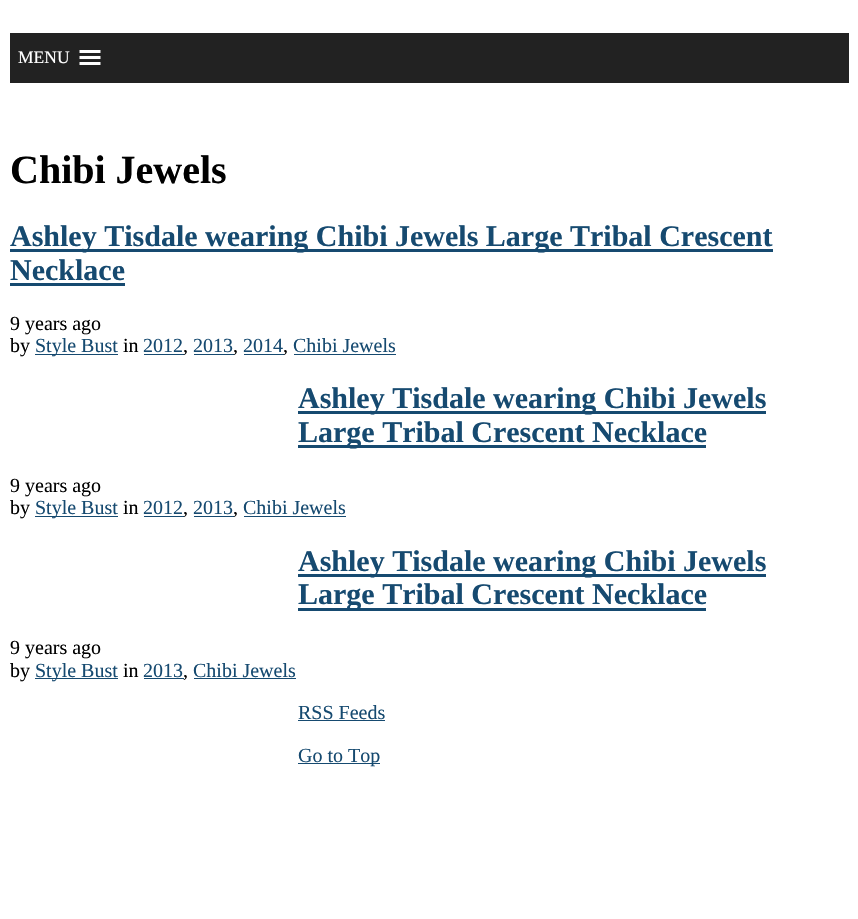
void draw(SkCanvas* c) {
SkPaint p;
p.setAntiAlias(true);
auto F=[&](const char* family, int weight, float size, bool italic = false){SkFontStyle style(weight, SkFontStyle::kNormal_Width,italic ? SkFontStyle::kItalic_Slant : SkFontStyle::kUpright_Slant);SkFont result(fontMgr->matchFamilyStyle(family, style), size);result.setSubpixel(true);return result;};
auto T=[&](const char* s, float x, float y, const SkFont& font){c->drawString(s, x, y, font, p);};
auto R=[&](float x, float y, float w, float h){c->drawRect(SkRect::MakeXYWH(x, y, w, h), p);};
auto I=[&](const char* path, float x, float y, float w, float h){auto image = SkImages::DeferredFromEncodedData(SkData::MakeFromFileName(path));c->drawImageRect(image, SkRect::MakeXYWH(x, y, w, h), SkSamplingOptions());};
c->clear(0xffffffff);
p.setColor(0xff222222);
R(10,33,839,50);
auto f1 = F("Liberation Serif",400,17.5);
p.setColor(0xffffffff);
T("MENU",18,63,f1);
I("1.png",79,50,22,15);
auto f2 = F("Liberation Serif",700,40);
p.setColor(0xff000000);
T("Chibi Jewels",10,183,f2);
p.setColor(0xff164a70);
R(10,249,763,3);
auto f3 = F("Liberation Serif",700,30);
T("Ashley Tisdale wearing Chibi Jewels Large Tribal Crescent",10,246,f3);
T("Necklace",10,280,f3);
R(10,283,115,3);
auto f4 = F("Liberation Serif",400,20);
p.setColor(0xff000000);
T("9 years ago",10,330,f4);
T("by",10,352,f4);
p.setColor(0xff164a70);
R(35,354,83,1);
T("Style Bust",35,352,f4);
p.setColor(0xff000000);
T("in",123,352,f4);
p.setColor(0xff164a70);
T("2012",143,352,f4);
R(144,354,40,1);
p.setColor(0xff000000);
T(",",183,352,f4);
p.setColor(0xff164a70);
T("2013",193,352,f4);
R(194,354,40,1);
p.setColor(0xff000000);
T(",",233,352,f4);
p.setColor(0xff164a70);
T("2014",243,352,f4);
R(244,354,40,1);
p.setColor(0xff000000);
T(",",283,352,f4);
p.setColor(0xff164a70);
T("Chibi Jewels",293,352,f4);
R(294,354,102,1);
R(298,411,468,3);
T("Ashley Tisdale wearing Chibi Jewels",298,408,f3);
R(298,445,408,3);
T("Large Tribal Crescent Necklace",298,442,f3);
p.setColor(0xff000000);
T("9 years ago",10,492,f4);
T("by",10,514,f4);
p.setColor(0xff164a70);
R(35,516,83,1);
T("Style Bust",35,514,f4);
p.setColor(0xff000000);
T("in",123,514,f4);
p.setColor(0xff164a70);
T("2012",143,514,f4);
R(144,516,40,1);
p.setColor(0xff000000);
T(",",183,514,f4);
p.setColor(0xff164a70);
T("2013",193,514,f4);
R(194,516,40,1);
p.setColor(0xff000000);
T(",",233,514,f4);
p.setColor(0xff164a70);
T("Chibi Jewels",243,514,f4);
R(244,516,102,1);
R(298,574,468,3);
T("Ashley Tisdale wearing Chibi Jewels",298,571,f3);
R(298,608,408,3);
T("Large Tribal Crescent Necklace",298,604,f3);
p.setColor(0xff000000);
T("9 years ago",10,654,f4);
T("by",10,677,f4);
p.setColor(0xff164a70);
R(35,678,83,1);
T("Style Bust",35,677,f4);
p.setColor(0xff000000);
T("in",123,677,f4);
p.setColor(0xff164a70);
T("2013",143,677,f4);
R(144,678,40,1);
p.setColor(0xff000000);
T(",",183,677,f4);
p.setColor(0xff164a70);
T("Chibi Jewels",193,677,f4);
R(194,678,102,1);
T("RSS Feeds",298,719,f4);
R(298,720,87,1);
R(298,763,82,1);
T("Go to Top",298,762,f4);
}
